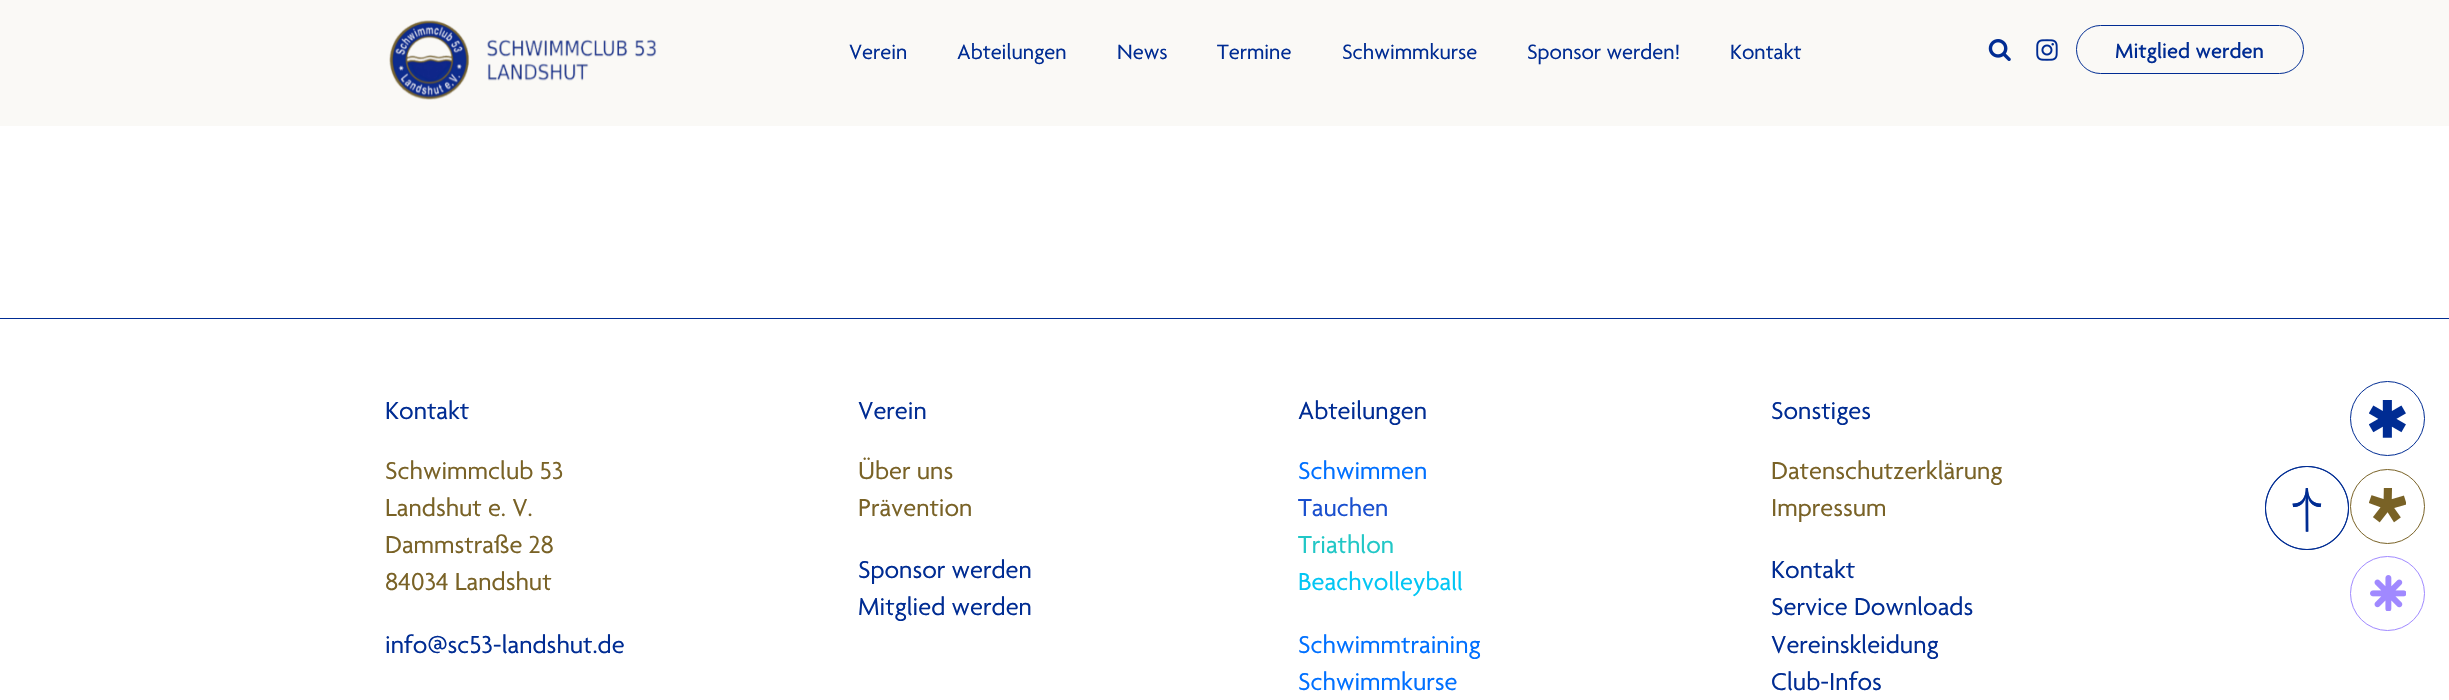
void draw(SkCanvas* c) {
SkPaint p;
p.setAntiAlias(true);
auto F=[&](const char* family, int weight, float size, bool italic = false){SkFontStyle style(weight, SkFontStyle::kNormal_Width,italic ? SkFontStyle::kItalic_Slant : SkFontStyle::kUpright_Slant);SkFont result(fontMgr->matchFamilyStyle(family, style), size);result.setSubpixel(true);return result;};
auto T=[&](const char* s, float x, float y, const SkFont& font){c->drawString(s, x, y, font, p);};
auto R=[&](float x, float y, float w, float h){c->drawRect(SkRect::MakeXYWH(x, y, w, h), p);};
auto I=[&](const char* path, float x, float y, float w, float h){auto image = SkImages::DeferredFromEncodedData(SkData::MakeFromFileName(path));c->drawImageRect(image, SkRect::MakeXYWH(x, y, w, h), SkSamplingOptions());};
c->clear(0xffffffff);
p.setColor(0xfffaf9f6);
R(0,0,2449,126);
I("1.png",389,20,268,80);
auto f1 = F("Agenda",400,22.5);
p.setColor(0xff002c93);
T("Verein",849,59,f1);
T("Abteilungen",957,59,f1);
T("News",1117,59,f1);
T("Termine",1217,59,f1);
T("Schwimmkurse",1342,59,f1);
T("Sponsor werden!",1527,59,f1);
T("Kontakt",1730,59,f1);
I("2.png",1988,39,23,22);
I("3.png",2036,39,22,22);
p.setStroke(true);
p.setStrokeWidth(1);
c->drawRoundRect(SkRect::MakeXYWH(2076.5,25.5,227,48),24,24,p);
auto f2 = F("Agenda",500,22.5);
p.setStroke(false);
T("Mitglied werden",2115,58,f2);
R(0,318,2449,1);
auto f3 = F("Agenda",400,26.5);
T("Kontakt",385,419,f3);
p.setColor(0xff796226);
T("Schwimmclub 53",385,479,f3);
T("Landshut e. V.",385,516,f3);
T("Dammstraße 28",385,553,f3);
T("84034 Landshut",385,590,f3);
p.setColor(0xff002c93);
T("info@sc53-landshut.de",385,653,f3);
T("Verein",858,419,f3);
p.setColor(0xff796226);
T("Über uns",858,479,f3);
T("Prävention",858,516,f3);
p.setColor(0xff002c93);
T("Sponsor werden",858,578,f3);
T("Mitglied werden",858,615,f3);
T("Abteilungen",1298,419,f3);
p.setColor(0xff0070ff);
T("Schwimmen",1298,479,f3);
p.setColor(0xff194fce);
T("Tauchen",1298,516,f3);
p.setColor(0xff21c7c6);
T("Triathlon",1298,553,f3);
p.setColor(0xff02c6f4);
T("Beachvolleyball",1298,590,f3);
p.setColor(0xff0070ff);
T("Schwimmtraining",1298,653,f3);
T("Schwimmkurse",1298,690,f3);
p.setColor(0xff002c93);
T("Sonstiges",1771,419,f3);
p.setColor(0xff796226);
T("Datenschutzerklärung",1771,479,f3);
T("Impressum",1771,516,f3);
p.setColor(0xff002c93);
T("Kontakt",1771,578,f3);
T("Service Downloads",1771,615,f3);
T("Vereinskleidung",1771,653,f3);
T("Club-Infos",1771,690,f3);
I("4.png",2265,466,84,84);
p.setStroke(true);
c->drawCircle(2387.5,418.5,37,p);
I("5.png",2369,400,37,38);
p.setColor(0xff796226);
c->drawCircle(2387.5,506.5,37,p);
I("6.png",2369,488,37,35);
p.setColor(0xffa089ff);
c->drawCircle(2387.5,593.5,37,p);
I("7.png",2370,575,36,36);
}
